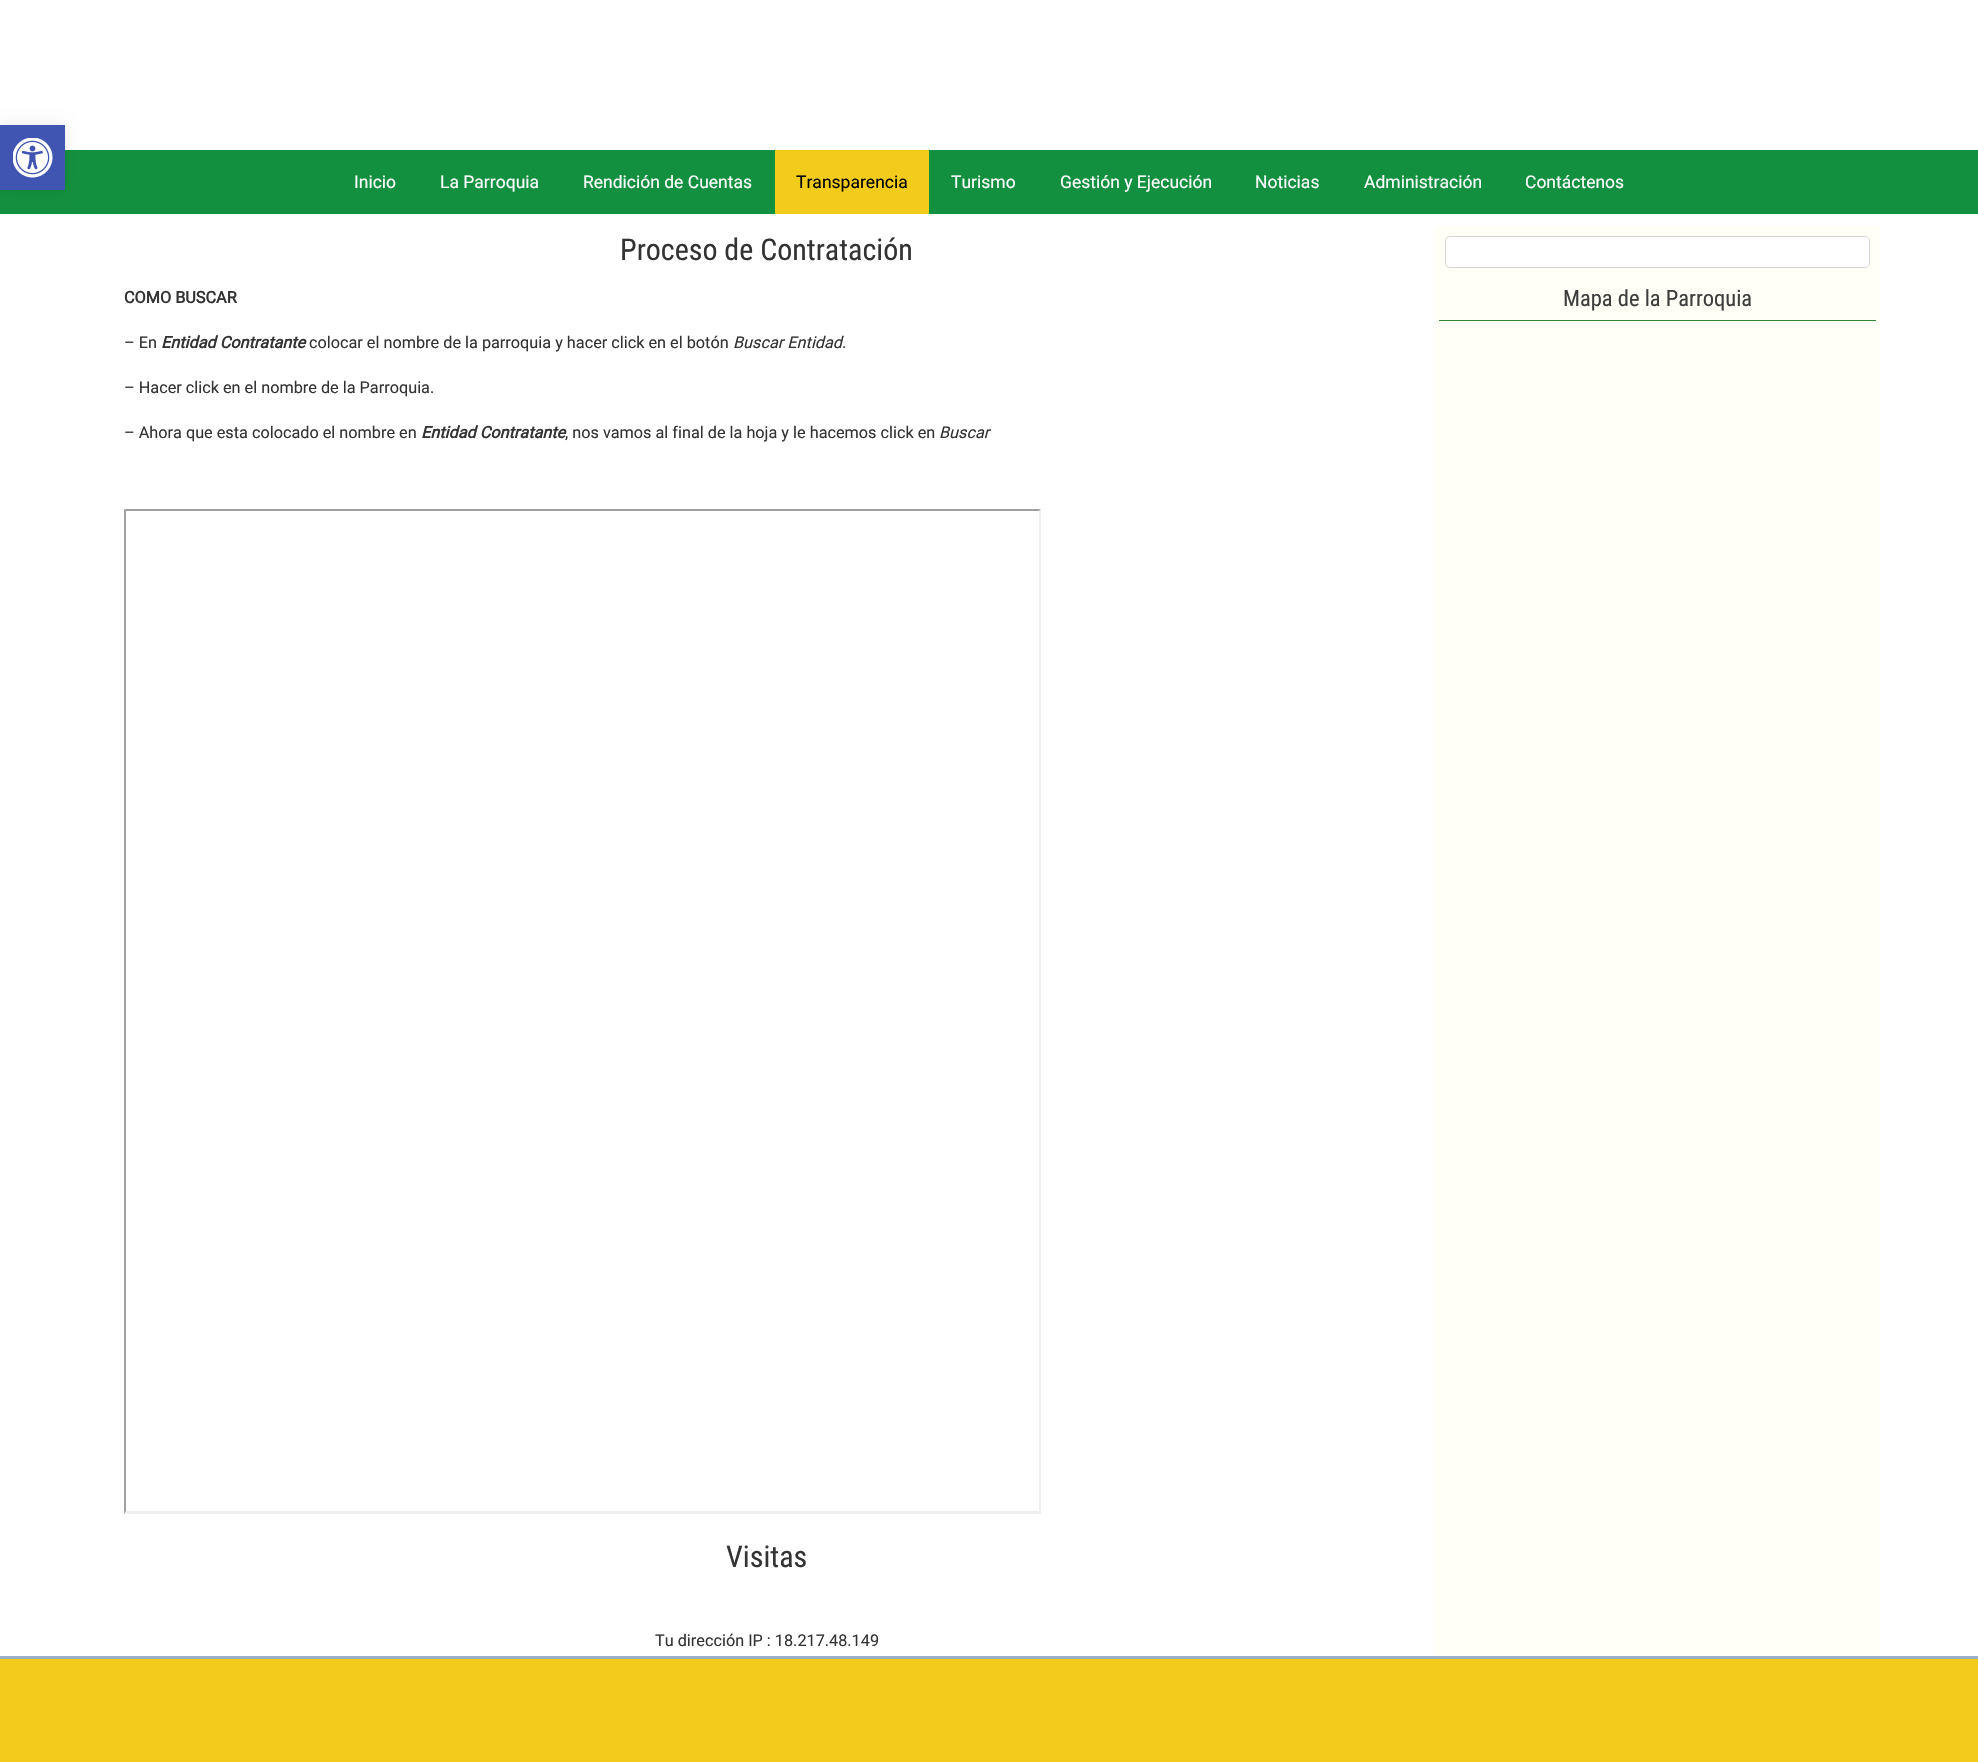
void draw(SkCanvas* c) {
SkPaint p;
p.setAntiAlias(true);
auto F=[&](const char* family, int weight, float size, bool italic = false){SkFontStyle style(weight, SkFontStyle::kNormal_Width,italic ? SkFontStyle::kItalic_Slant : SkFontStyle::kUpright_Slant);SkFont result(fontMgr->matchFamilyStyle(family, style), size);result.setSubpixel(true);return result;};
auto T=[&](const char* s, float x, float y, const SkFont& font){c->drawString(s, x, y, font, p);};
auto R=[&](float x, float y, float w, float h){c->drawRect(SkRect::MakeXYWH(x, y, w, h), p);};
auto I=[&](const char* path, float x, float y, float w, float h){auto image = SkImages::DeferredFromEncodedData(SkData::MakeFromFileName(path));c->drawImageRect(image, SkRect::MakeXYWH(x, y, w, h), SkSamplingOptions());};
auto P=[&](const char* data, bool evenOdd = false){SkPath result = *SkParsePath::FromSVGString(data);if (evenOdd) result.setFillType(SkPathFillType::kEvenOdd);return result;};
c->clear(0xffffffff);
p.setColor(0xff13903f);
R(0,150,1978,64);
p.setColor(0x1a000000);
p.setMaskFilter(SkMaskFilter::MakeBlur(kNormal_SkBlurStyle, 6));
c->drawRect(SkRect::MakeXYWH(0,125,65,65),p);
p.setMaskFilter(nullptr);
p.setColor(0xff4054b2);
R(0,125,65,65);
I("1.png",13,138,40,40);
auto f1 = F("Roboto",400,17.5);
p.setColor(0xffffffff);
T("Inicio",354,188,f1);
T("La Parroquia",440,188,f1);
T("Rendición de Cuentas",583,188,f1);
p.setColor(0xfff3cb1b);
R(775,150,154,64);
p.setColor(0xff000000);
T("Transparencia",796,188,f1);
p.setColor(0xffffffff);
T("Turismo",951,188,f1);
T("Gestión y Ejecución",1060,188,f1);
T("Noticias",1255,188,f1);
T("Administración",1364,188,f1);
T("Contáctenos",1525,188,f1);
auto f2 = F("Roboto Condensed",400,30);
p.setColor(0xff333333);
T("Proceso de Contratación",620,260,f2);
auto f3 = F("Roboto",700,16.25);
T("COMO BUSCAR",124,303,f3);
auto f4 = F("Roboto",400,16.25);
T("– En",124,348,f4);
auto f5 = F("Roboto",700,16.25,true);
T("Entidad Contratante",161,348,f5);
T("colocar el nombre de la parroquia y hacer click en el botón",309,348,f4);
auto f6 = F("Roboto",400,16.25,true);
T("Buscar Entidad",733,348,f6);
T(".",842,348,f4);
T("– Hacer click en el nombre de la Parroquia.",124,393,f4);
T("– Ahora que esta colocado el nombre en",124,438,f4);
T("Entidad Contratante",421,438,f5);
T(", nos vamos al final de la hoja y le hacemos click en",565,438,f4);
T("Buscar",939,438,f6);
p.setColor(0xff9f9f9f);
c->drawPath(P("M124 509h917l-2 2h-913z"),p);
p.setColor(0xffeeeeee);
c->drawPath(P("M1041 509v1005l-2-3v-1000z"),p);
c->drawPath(P("M1041 1514h-917l2-3h913z"),p);
p.setColor(0xff9f9f9f);
c->drawPath(P("M124 1514v-1005l2 2v1000z"),p);
p.setColor(0xff333333);
T("Visitas",726,1567,f2);
T("Tu dirección IP : 18.217.48.149",655,1646,f4);
p.setColor(0xfffffff8);
R(1435,226,445,1430);
p.setColor(0xffffffff);
c->drawRoundRect(SkRect::MakeXYWH(1445.5,236.5,424,31),4.5,4.5,p);
p.setStroke(true);
p.setStrokeWidth(1);
p.setColor(0xffd6d6d6);
c->drawRoundRect(SkRect::MakeXYWH(1445.5,236.5,424,31),4.5,4.5,p);
p.setStroke(false);
p.setColor(0xff2a8932);
R(1439,320,437,1);
auto f7 = F("Roboto Condensed",400,22.5);
p.setColor(0xff3d3d3d);
T("Mapa de la Parroquia",1563,306,f7);
p.setColor(0xfff3cb1b);
R(0,1659,1978,103);
p.setColor(0xff9cafc4);
R(0,1656,1978,3);
}
